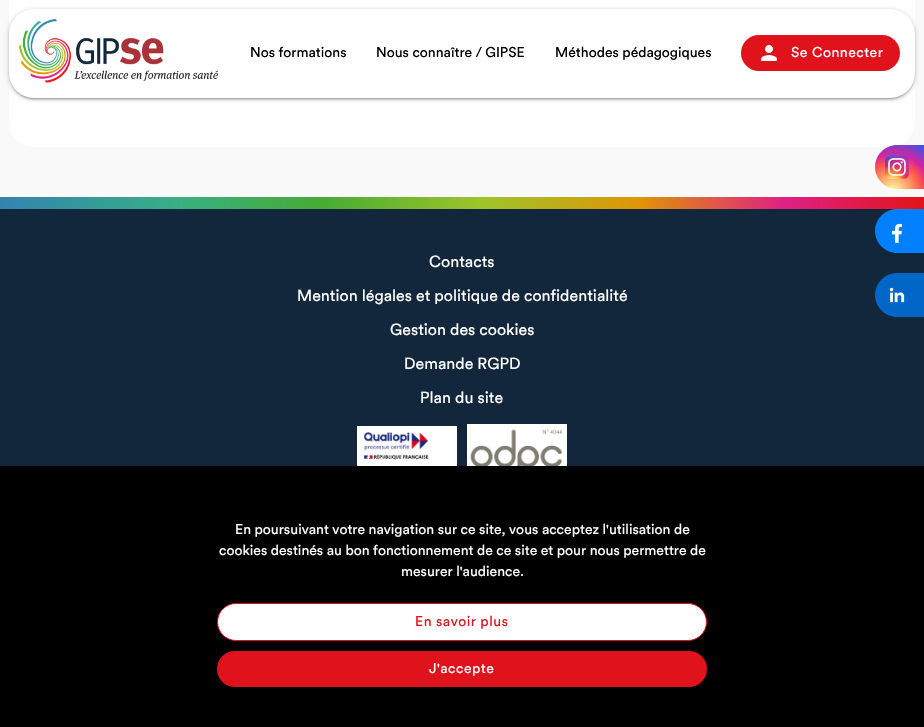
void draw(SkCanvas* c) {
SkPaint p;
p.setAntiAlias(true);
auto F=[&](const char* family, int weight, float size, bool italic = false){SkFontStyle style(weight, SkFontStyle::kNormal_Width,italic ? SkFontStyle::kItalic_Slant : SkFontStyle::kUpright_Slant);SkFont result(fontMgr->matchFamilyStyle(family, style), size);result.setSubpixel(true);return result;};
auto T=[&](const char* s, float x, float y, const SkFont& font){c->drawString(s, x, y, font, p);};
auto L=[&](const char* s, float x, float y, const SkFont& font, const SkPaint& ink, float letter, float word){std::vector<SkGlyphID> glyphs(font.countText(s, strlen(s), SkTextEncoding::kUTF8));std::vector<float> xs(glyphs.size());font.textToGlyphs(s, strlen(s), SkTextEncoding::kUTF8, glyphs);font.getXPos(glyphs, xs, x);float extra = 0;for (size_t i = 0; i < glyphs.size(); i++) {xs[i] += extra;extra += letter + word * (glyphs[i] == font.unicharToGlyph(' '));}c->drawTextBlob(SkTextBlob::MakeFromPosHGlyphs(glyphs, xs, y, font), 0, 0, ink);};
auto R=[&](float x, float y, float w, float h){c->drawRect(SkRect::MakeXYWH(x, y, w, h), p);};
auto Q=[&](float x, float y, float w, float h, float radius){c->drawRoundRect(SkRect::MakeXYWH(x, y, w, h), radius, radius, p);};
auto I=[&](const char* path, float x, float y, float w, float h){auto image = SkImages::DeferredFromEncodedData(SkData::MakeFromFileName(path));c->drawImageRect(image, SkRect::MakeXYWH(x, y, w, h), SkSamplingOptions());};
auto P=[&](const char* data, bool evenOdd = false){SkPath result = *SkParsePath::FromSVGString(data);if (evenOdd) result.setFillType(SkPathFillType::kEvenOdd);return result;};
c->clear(0xfff9f9f9);
p.setColor(0xffffffff);
Q(9,-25,906,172,25);
p.setColor(0x33000000);
p.setMaskFilter(SkMaskFilter::MakeBlur(kNormal_SkBlurStyle, 2.5));
c->drawRoundRect(SkRect::MakeXYWH(9,10,906,89),25,25,p);
p.setMaskFilter(nullptr);
p.setColor(0x1f000000);
p.setMaskFilter(SkMaskFilter::MakeBlur(kNormal_SkBlurStyle, .5));
c->drawRoundRect(SkRect::MakeXYWH(11,14,902,85),23,23,p);
p.setMaskFilter(nullptr);
p.setColor(0x24000000);
p.setMaskFilter(SkMaskFilter::MakeBlur(kNormal_SkBlurStyle, 1));
c->drawRoundRect(SkRect::MakeXYWH(9,11,906,89),25,25,p);
p.setMaskFilter(nullptr);
p.setColor(0xffffffff);
Q(9,9,906,89,25);
I("1.png",19,19,199,64);
auto f1 = F("Circular",400,14);
p.setColor(0xff000000);
T("Nos formations",250,57,f1);
T("Nous connaître / GIPSE",376,57,f1);
T("Méthodes pédagogiques",555,57,f1);
p.setColor(0xffe0121b);
Q(741,35,159,36,18);
I("2.png",761,45,16,16);
p.setColor(0xffffffff);
L("Se Connecter",791,57,f1,p,.5,0);
p.setColor(0xff12273c);
R(0,209,924,257);
{
const SkColor colors[] = {0xff3384af,0xff38af85,0xff48ab33,0xff9ec42b,0xffdf9606,0xffe01f84,0xffe21418};
const float stops[] = {0,.19,.35,.52,.69,.85,1};
const SkPoint ends[] = {{0,203}, {924,203}};
p.setShader(SkGradientShader::MakeLinear(ends, colors, stops, 7, SkTileMode::kClamp));
p.setAlpha(255);
}
R(0,197,924,12);
auto f2 = F("Circular",400,16);
p.setShader(nullptr);
p.setColor(0xffffffff);
T("Contacts",429,267,f2);
T("Mention légales et politique de confidentialité",297,301,f2);
T("Gestion des cookies",390,335,f2);
T("Demande RGPD",404,369,f2);
T("Plan du site",420,403,f2);
I("3.png",357,426,100,40);
I("4.png",467,424,100,42);
{
const SkColor colors[] = {0xfffdf497,0xfffdf497,0xfffd5949,0xffd6249f,0xff285aeb};
const float stops[] = {0,.05,.45,.6,.9};
p.setShader(SkGradientShader::MakeRadial({893,192}, 63, colors, stops, 5, SkTileMode::kClamp));
p.setAlpha(255);
}
c->drawPath(P("M897 145h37v44h-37c-12 0-22-10-22-22c0-12 10-22 22-22z"),p);
I("5.png",885,155,24,24);
p.setShader(nullptr);
p.setColor(0xff0080ff);
c->drawPath(P("M897 209h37v44h-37c-12 0-22-10-22-22c0-12 10-22 22-22z"),p);
I("6.png",892,223,10,20);
p.setColor(0xff0066c8);
c->drawPath(P("M897 273h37v44h-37c-12 0-22-10-22-22c0-12 10-22 22-22z"),p);
I("7.png",889,287,16,16);
p.setColor(0xff000000);
R(0,466,924,261);
p.setColor(0xffffffff);
T("En poursuivant votre navigation sur ce site, vous acceptez l'utilisation de",235,534,f1);
T("cookies destinés au bon fonctionnement de ce site et pour nous permettre de",219,555,f1);
T("mesurer l'audience.",401,576,f1);
c->drawRoundRect(SkRect::MakeXYWH(217.5,603.5,489,37),18.5,18.5,p);
p.setStroke(true);
p.setStrokeWidth(1);
p.setColor(0xffe0121b);
c->drawRoundRect(SkRect::MakeXYWH(217.5,603.5,489,37),18.5,18.5,p);
p.setStroke(false);
L("En savoir plus",415,626,f1,p,.5,0);
Q(217,651,490,36,18);
p.setColor(0xffffffff);
L("J'accepte",429,673,f1,p,.5,0);
}
